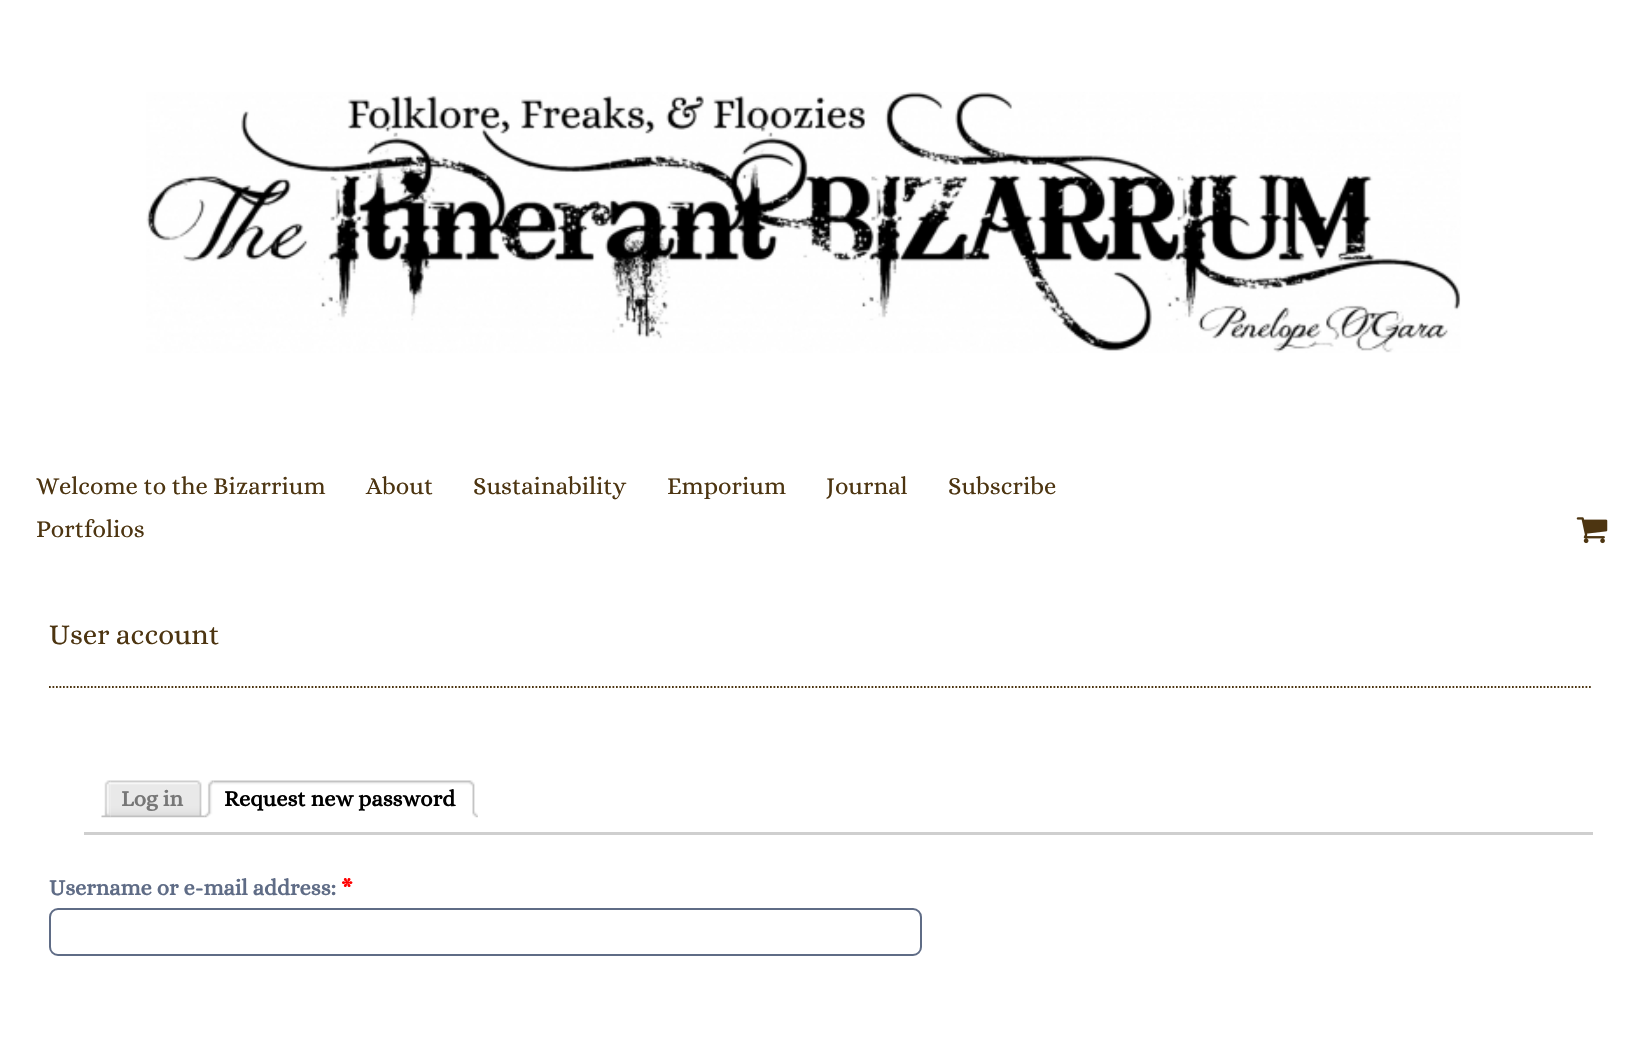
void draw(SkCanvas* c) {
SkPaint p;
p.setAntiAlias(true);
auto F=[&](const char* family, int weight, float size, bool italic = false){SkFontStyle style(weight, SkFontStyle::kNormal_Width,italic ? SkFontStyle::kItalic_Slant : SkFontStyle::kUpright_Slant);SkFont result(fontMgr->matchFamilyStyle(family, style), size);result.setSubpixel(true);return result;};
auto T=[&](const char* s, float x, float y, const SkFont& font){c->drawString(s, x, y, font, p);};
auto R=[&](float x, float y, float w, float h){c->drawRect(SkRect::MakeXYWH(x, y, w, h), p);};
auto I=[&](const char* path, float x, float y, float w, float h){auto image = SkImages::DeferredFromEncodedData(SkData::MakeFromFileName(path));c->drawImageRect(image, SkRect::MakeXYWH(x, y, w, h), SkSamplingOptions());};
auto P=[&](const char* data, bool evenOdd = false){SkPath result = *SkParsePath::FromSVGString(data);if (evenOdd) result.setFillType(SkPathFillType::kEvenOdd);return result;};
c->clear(0xffffffff);
I("1.png",146,92,1315,261);
auto f1 = F("Alice",400,24.6);
p.setColor(0xff4d3511);
T("Welcome to the Bizarrium",36,494,f1);
T("About",366,494,f1);
T("Sustainability",473,494,f1);
T("Emporium",667,494,f1);
T("Journal",826,494,f1);
T("Subscribe",948,494,f1);
T("Portfolios",36,537,f1);
I("2.png",1576,517,32,27);
p.setStroke(true);
p.setStrokeWidth(1.8);
p.setPathEffect(SkDashPathEffect::Make({{1.75f,1.75f}}, 0));
c->drawPath(P("M49 687h1543.5"),p);
p.setPathEffect(nullptr);
auto f2 = F("Alice",400,29);
p.setStroke(false);
T("User account",49,644,f2);
p.setColor(0xffcfcfcf);
R(84,832,1509,3);
I("3.png",101,780,10,38);
I("4.png",110,780,95,38);
auto f3 = F("Alice",700,22.4);
p.setColor(0xff777777);
T("Log in",121,806,f3);
I("5.png",204,780,10,38);
I("6.png",213,780,265,38);
p.setColor(0xff000000);
T("Request new password",224,806,f3);
p.setColor(0xff5f6c86);
T("Username or e-mail address:",49,895,f3);
p.setColor(0xffff0000);
T("*",341,895,f3);
p.setStroke(true);
p.setStrokeWidth(2);
p.setColor(0xff5f6c86);
c->drawRoundRect(SkRect::MakeXYWH(50,909,871,46),8,8,p);
}
